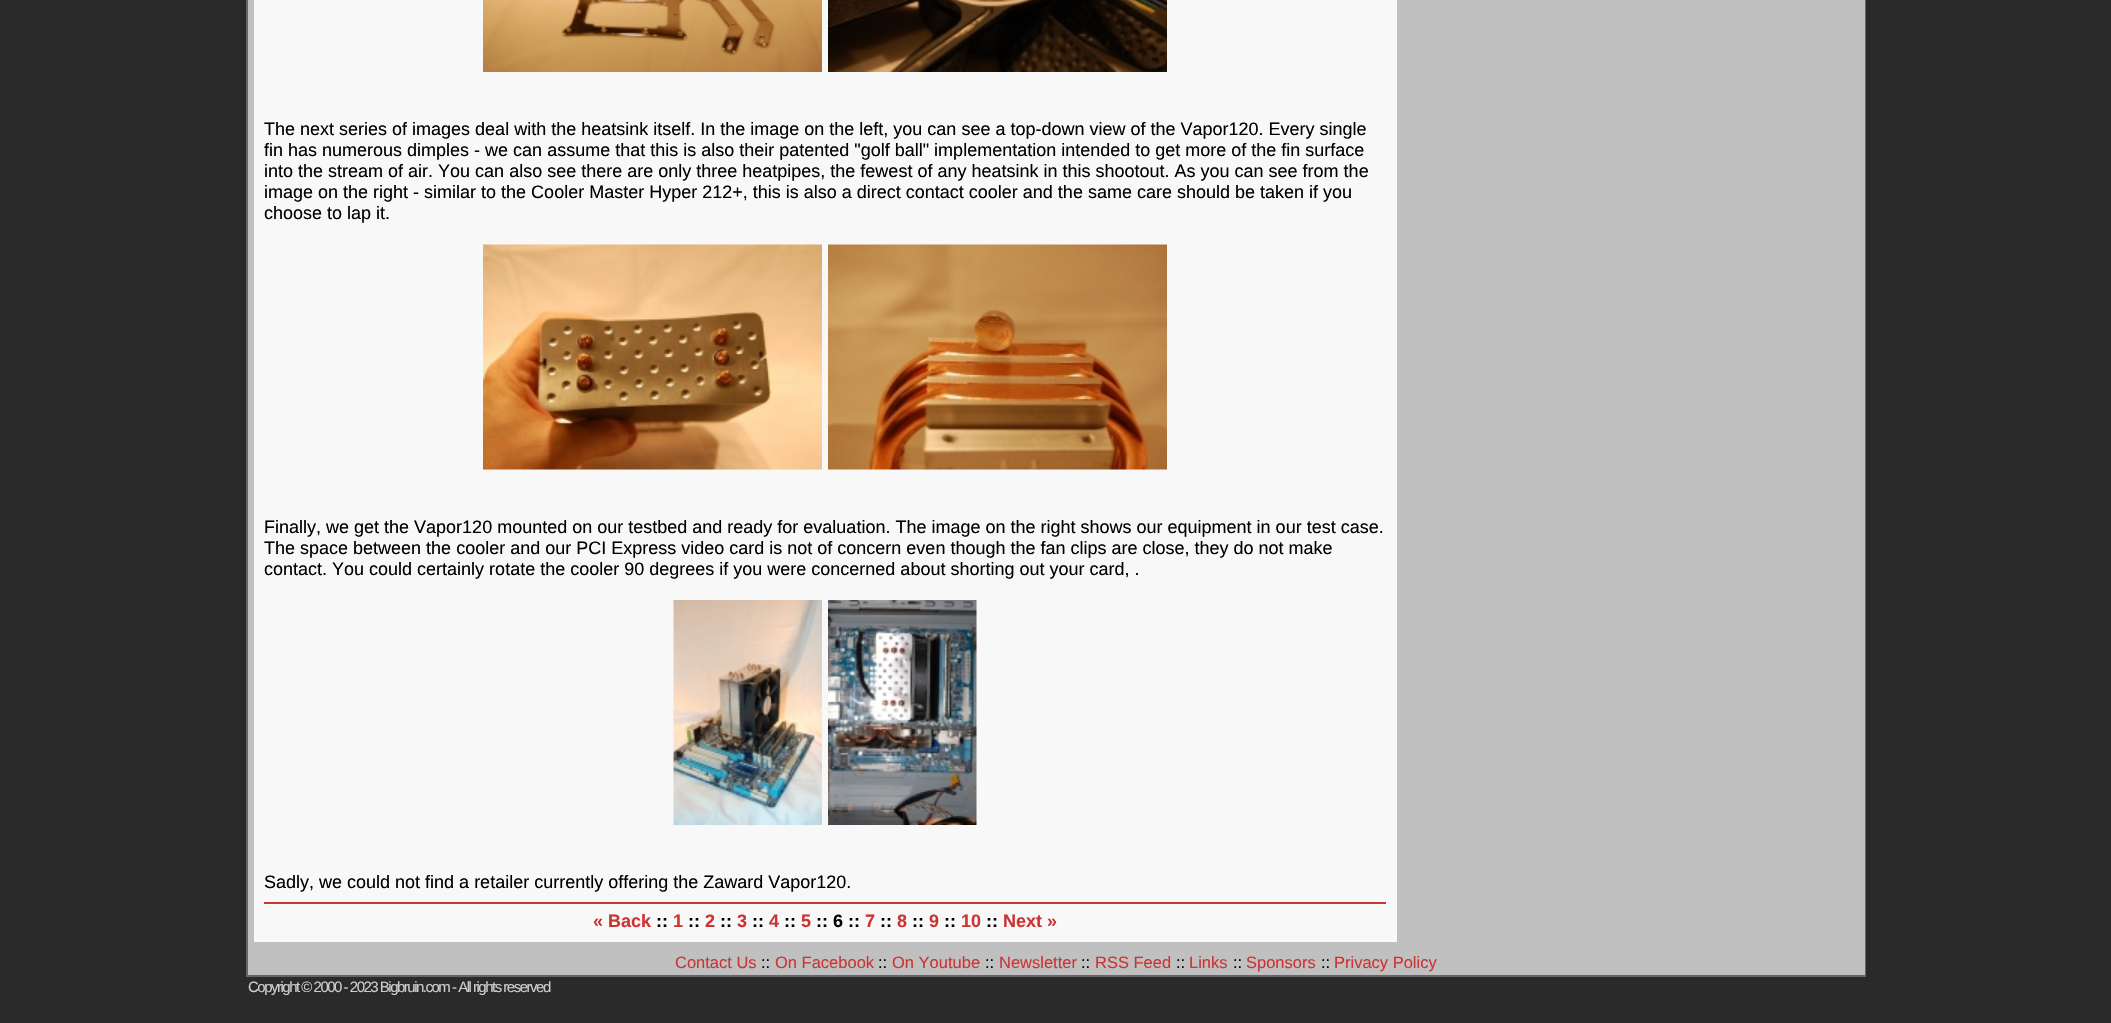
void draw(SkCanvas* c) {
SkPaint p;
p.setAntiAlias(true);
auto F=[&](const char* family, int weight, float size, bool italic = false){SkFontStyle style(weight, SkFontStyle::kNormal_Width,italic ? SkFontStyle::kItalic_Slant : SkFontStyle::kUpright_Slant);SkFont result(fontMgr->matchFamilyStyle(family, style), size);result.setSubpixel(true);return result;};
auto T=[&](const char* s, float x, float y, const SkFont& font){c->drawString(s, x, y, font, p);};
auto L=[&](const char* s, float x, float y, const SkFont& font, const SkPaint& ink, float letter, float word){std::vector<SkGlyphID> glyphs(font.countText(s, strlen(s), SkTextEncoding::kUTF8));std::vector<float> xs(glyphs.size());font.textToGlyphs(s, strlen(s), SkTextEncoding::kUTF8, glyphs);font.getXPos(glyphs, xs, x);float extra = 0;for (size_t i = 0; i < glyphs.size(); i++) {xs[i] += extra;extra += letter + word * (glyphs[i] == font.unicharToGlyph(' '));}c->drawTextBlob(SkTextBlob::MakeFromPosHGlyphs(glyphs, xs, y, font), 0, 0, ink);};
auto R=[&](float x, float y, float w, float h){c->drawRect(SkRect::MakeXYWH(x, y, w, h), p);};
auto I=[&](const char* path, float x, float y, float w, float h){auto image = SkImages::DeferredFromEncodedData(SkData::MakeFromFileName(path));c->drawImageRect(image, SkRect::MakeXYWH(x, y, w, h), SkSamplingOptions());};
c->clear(0xff2a2a2a);
p.setColor(0xff666666);
R(246,0,1620,977);
p.setColor(0xffc0c0c0);
R(248,0,1617,975);
p.setColor(0xfff8f8f8);
R(254,0,1143,942);
I("1.png",483,0,339,72);
I("2.png",828,0,339,72);
auto f1 = F("Liberation Sans",400,18);
p.setColor(0xff000000);
T("The next series of images deal with the heatsink itself. In the image on the left, you can see a top-down view of the Vapor120. Every single",264,135,f1);
T("fin has numerous dimples - we can assume that this is also their patented \"golf ball\" implementation intended to get more of the fin surface",264,156,f1);
T("into the stream of air. You can also see there are only three heatpipes, the fewest of any heatsink in this shootout. As you can see from the",264,177,f1);
T("image on the right - similar to the Cooler Master Hyper 212+, this is also a direct contact cooler and the same care should be taken if you",264,198,f1);
T("choose to lap it.",264,219,f1);
I("3.png",483,244,339,226);
I("4.png",828,244,339,226);
T("Finally, we get the Vapor120 mounted on our testbed and ready for evaluation. The image on the right shows our equipment in our test case.",264,533,f1);
T("The space between the cooler and our PCI Express video card is not of concern even though the fan clips are close, they do not make",264,554,f1);
T("contact. You could certainly rotate the cooler 90 degrees if you were concerned about shorting out your card, .",264,575,f1);
I("5.png",673,600,149,225);
I("6.png",828,600,149,225);
T("Sadly, we could not find a retailer currently offering the Zaward Vapor120.",264,888,f1);
p.setColor(0xffcc3333);
R(264,902,1122,2);
auto f2 = F("Liberation Sans",700,18);
T("« Back",593,927,f2);
p.setColor(0xff000000);
T("::",656,927,f2);
p.setColor(0xffcc3333);
T("1",673,927,f2);
p.setColor(0xff000000);
T("::",688,927,f2);
p.setColor(0xffcc3333);
T("2",705,927,f2);
p.setColor(0xff000000);
T("::",720,927,f2);
p.setColor(0xffcc3333);
T("3",737,927,f2);
p.setColor(0xff000000);
T("::",752,927,f2);
p.setColor(0xffcc3333);
T("4",769,927,f2);
p.setColor(0xff000000);
T("::",784,927,f2);
p.setColor(0xffcc3333);
T("5",801,927,f2);
p.setColor(0xff000000);
T(":: 6 ::",816,927,f2);
p.setColor(0xffcc3333);
T("7",865,927,f2);
p.setColor(0xff000000);
T("::",880,927,f2);
p.setColor(0xffcc3333);
T("8",897,927,f2);
p.setColor(0xff000000);
T("::",912,927,f2);
p.setColor(0xffcc3333);
T("9",929,927,f2);
p.setColor(0xff000000);
T("::",944,927,f2);
p.setColor(0xffcc3333);
T("10",961,927,f2);
p.setColor(0xff000000);
T("::",986,927,f2);
p.setColor(0xffcc3333);
T("Next »",1003,927,f2);
auto f3 = F("Liberation Sans",400,16.5);
T("Contact Us",675,968,f3);
p.setColor(0xff000000);
T("::",761,968,f3);
p.setColor(0xffcc3333);
T("On Facebook",775,968,f3);
p.setColor(0xff000000);
T("::",878,968,f3);
p.setColor(0xffcc3333);
T("On Youtube",892,968,f3);
p.setColor(0xff000000);
T("::",985,968,f3);
p.setColor(0xffcc3333);
T("Newsletter",999,968,f3);
p.setColor(0xff000000);
T("::",1081,968,f3);
p.setColor(0xffcc3333);
T("RSS Feed",1095,968,f3);
p.setColor(0xff000000);
T("::",1176,968,f3);
p.setColor(0xffcc3333);
T("Links",1189,968,f3);
p.setColor(0xff000000);
T("::",1233,968,f3);
p.setColor(0xffcc3333);
T("Sponsors",1246,968,f3);
p.setColor(0xff000000);
T("::",1321,968,f3);
p.setColor(0xffcc3333);
T("Privacy Policy",1334,968,f3);
auto f4 = F("Liberation Sans",400,15);
p.setColor(0xffcccccc);
L("Copyright © 2000 - 2023 Bigbruin.com - All rights reserved",248,992,f4,p,-1.5,0);
}
